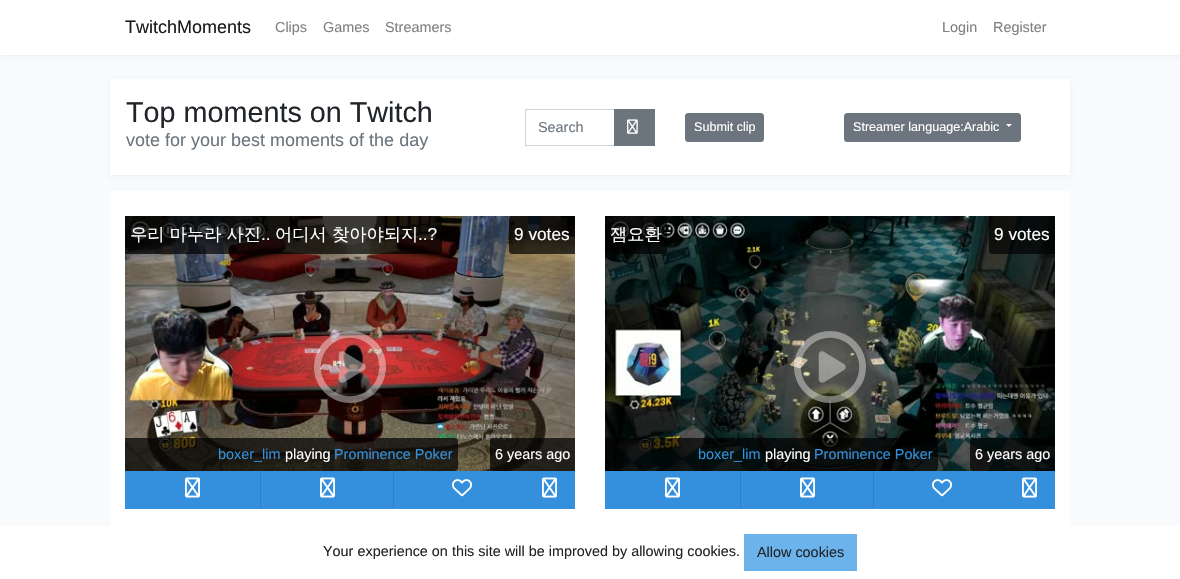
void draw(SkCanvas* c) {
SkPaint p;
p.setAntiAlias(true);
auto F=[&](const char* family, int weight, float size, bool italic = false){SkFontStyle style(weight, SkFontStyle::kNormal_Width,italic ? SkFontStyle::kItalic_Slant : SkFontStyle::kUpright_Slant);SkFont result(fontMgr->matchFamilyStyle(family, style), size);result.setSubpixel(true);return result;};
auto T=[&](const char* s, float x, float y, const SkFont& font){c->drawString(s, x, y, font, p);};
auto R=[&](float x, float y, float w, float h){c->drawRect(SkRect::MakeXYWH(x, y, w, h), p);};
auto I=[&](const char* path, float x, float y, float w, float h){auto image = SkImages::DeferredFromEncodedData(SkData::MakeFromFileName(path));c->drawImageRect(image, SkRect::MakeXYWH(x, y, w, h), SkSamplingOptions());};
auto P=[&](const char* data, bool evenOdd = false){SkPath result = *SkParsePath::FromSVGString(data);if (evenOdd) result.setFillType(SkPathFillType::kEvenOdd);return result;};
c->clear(0xfff8fafc);
p.setColor(0x0a000000);
p.setMaskFilter(SkMaskFilter::MakeBlur(kNormal_SkBlurStyle, 2));
c->drawRect(SkRect::MakeXYWH(0,2,1180,55),p);
p.setMaskFilter(nullptr);
p.setColor(0xffffffff);
R(0,0,1180,55);
auto f1 = F("Liberation Sans",400,18);
p.setColor(0xff1a1a1a);
T("TwitchMoments",125,33,f1);
auto f2 = F("Liberation Sans",400,14.4);
p.setColor(0xff808080);
T("Clips",275,32,f2);
T("Games",323,32,f2);
T("Streamers",385,32,f2);
T("Login",942,32,f2);
T("Register",993,32,f2);
p.setColor(0x0a000000);
p.setMaskFilter(SkMaskFilter::MakeBlur(kNormal_SkBlurStyle, 2));
c->drawRect(SkRect::MakeXYWH(110,81,960,96),p);
p.setMaskFilter(nullptr);
p.setColor(0xffffffff);
R(110,79,960,96);
auto f3 = F("Liberation Sans",400,28.75);
p.setColor(0xff212529);
T("Top moments on Twitch",126,122,f3);
p.setColor(0xff6c757d);
T("vote for your best moments of the day",126,146,f1);
p.setStroke(true);
p.setStrokeWidth(1);
p.setColor(0xffced4da);
c->drawRect(SkRect::MakeXYWH(525.5,109.5,89,36),p);
p.setStroke(false);
p.setColor(0xff6c757d);
T("Search",538,132,f2);
R(614,109,41,37);
I("1.png",627,119,11,15);
c->drawRoundRect(SkRect::MakeXYWH(685.5,113.5,78,28),2.5,2.5,p);
p.setStroke(true);
c->drawRoundRect(SkRect::MakeXYWH(685.5,113.5,78,28),2.5,2.5,p);
auto f4 = F("Liberation Sans",400,12.6);
p.setStroke(false);
p.setColor(0xffffffff);
T("Submit clip",694,131,f4);
p.setColor(0xff6c757d);
c->drawRoundRect(SkRect::MakeXYWH(844.5,113.5,176,28),2.5,2.5,p);
p.setStroke(true);
c->drawRoundRect(SkRect::MakeXYWH(844.5,113.5,176,28),2.5,2.5,p);
p.setStroke(false);
p.setColor(0xffffffff);
T("Streamer language:Arabic",853,131,f4);
c->drawPath(P("M1006 124h6l-3 3z"),p);
R(110,191,960,335);
I("2.png",125,216,450,255);
p.setColor(0xb3000000);
c->drawPath(P("M125 216h314c1.5 0 3 1.5 3 3v32c0 1.5-1.5 3-3 3h-314z"),p);
auto f5 = F("WenQuanYi Zen Hei",500,17.25);
p.setColor(0xffffffff);
T("우리 마누라 사진",130,240,f5);
auto f6 = F("Liberation Sans",400,17.25);
T("..",261,240,f6);
T("어디서 찾아야되지",275,240,f5);
T("..?",418,240,f6);
p.setColor(0xb3000000);
c->drawPath(P("M512 216h63v38h-63c-1.5 0-3-1.5-3-3v-32c0-1.5 1.5-3 3-3z"),p);
p.setColor(0xffffffff);
T("9 votes",514,240,f6);
I("3.png",314,331,72,72);
p.setColor(0xb3000000);
c->drawPath(P("M125 438h330c1.5 0 3 1.5 3 3v27c0 1.5-1.5 3-3 3h-330z"),p);
p.setColor(0xff3490dc);
T("boxer_lim",218,459,f2);
p.setColor(0xffffffff);
T("playing",285,459,f2);
p.setColor(0xff3490dc);
T("Prominence Poker",334,459,f2);
p.setColor(0xb3000000);
c->drawPath(P("M493 438h82v33h-82c-1.5 0-3-1.5-3-3v-27c0-1.5 1.5-3 3-3z"),p);
p.setColor(0xffffffff);
T("6 years ago",495,459,f2);
p.setColor(0xff3490dc);
R(125,471,450,38);
I("4.png",185,477,15,21);
p.setColor(0xff2e7ec1);
c->drawPath(P("M394 471v38l-1-1v-36z"),p);
p.setColor(0xff3490dc);
c->drawPath(P("M394 509h-134l1-1h132z"),p);
p.setColor(0xff2e7ec1);
c->drawPath(P("M260 509v-38l1 1v36z"),p);
I("4.png",320,477,15,21);
I("5.png",452,479,20,18);
I("4.png",542,477,15,21);
I("6.png",605,216,450,255);
p.setColor(0xb3000000);
c->drawPath(P("M605 216h59c1.5 0 3 1.5 3 3v32c0 1.5-1.5 3-3 3h-59z"),p);
p.setColor(0xffffffff);
T("잼요환",610,240,f5);
p.setColor(0xb3000000);
c->drawPath(P("M992 216h63v38h-63c-1.5 0-3-1.5-3-3v-32c0-1.5 1.5-3 3-3z"),p);
p.setColor(0xffffffff);
T("9 votes",994,240,f6);
I("7.png",794,331,72,72);
p.setColor(0xb3000000);
c->drawPath(P("M605 438h330c1.5 0 3 1.5 3 3v27c0 1.5-1.5 3-3 3h-330z"),p);
p.setColor(0xff3490dc);
T("boxer_lim",698,459,f2);
p.setColor(0xffffffff);
T("playing",765,459,f2);
p.setColor(0xff3490dc);
T("Prominence Poker",814,459,f2);
p.setColor(0xb3000000);
c->drawPath(P("M973 438h82v33h-82c-1.5 0-3-1.5-3-3v-27c0-1.5 1.5-3 3-3z"),p);
p.setColor(0xffffffff);
T("6 years ago",975,459,f2);
p.setColor(0xff3490dc);
R(605,471,450,38);
I("4.png",665,477,15,21);
p.setColor(0xff2e7ec1);
c->drawPath(P("M874 471v38l-1-1v-36z"),p);
p.setColor(0xff3490dc);
c->drawPath(P("M874 509h-134l1-1h132z"),p);
p.setColor(0xff2e7ec1);
c->drawPath(P("M740 509v-38l1 1v36z"),p);
I("4.png",800,477,15,21);
I("5.png",932,479,20,18);
I("4.png",1022,477,15,21);
p.setColor(0xffffffff);
R(0,526,1180,53);
p.setColor(0xff212529);
T("Your experience on this site will be improved by allowing cookies.",323,556,f2);
p.setColor(0xff6cb2eb);
R(744,534,113,37);
p.setColor(0xff212529);
T("Allow cookies",757,557,f2);
}
